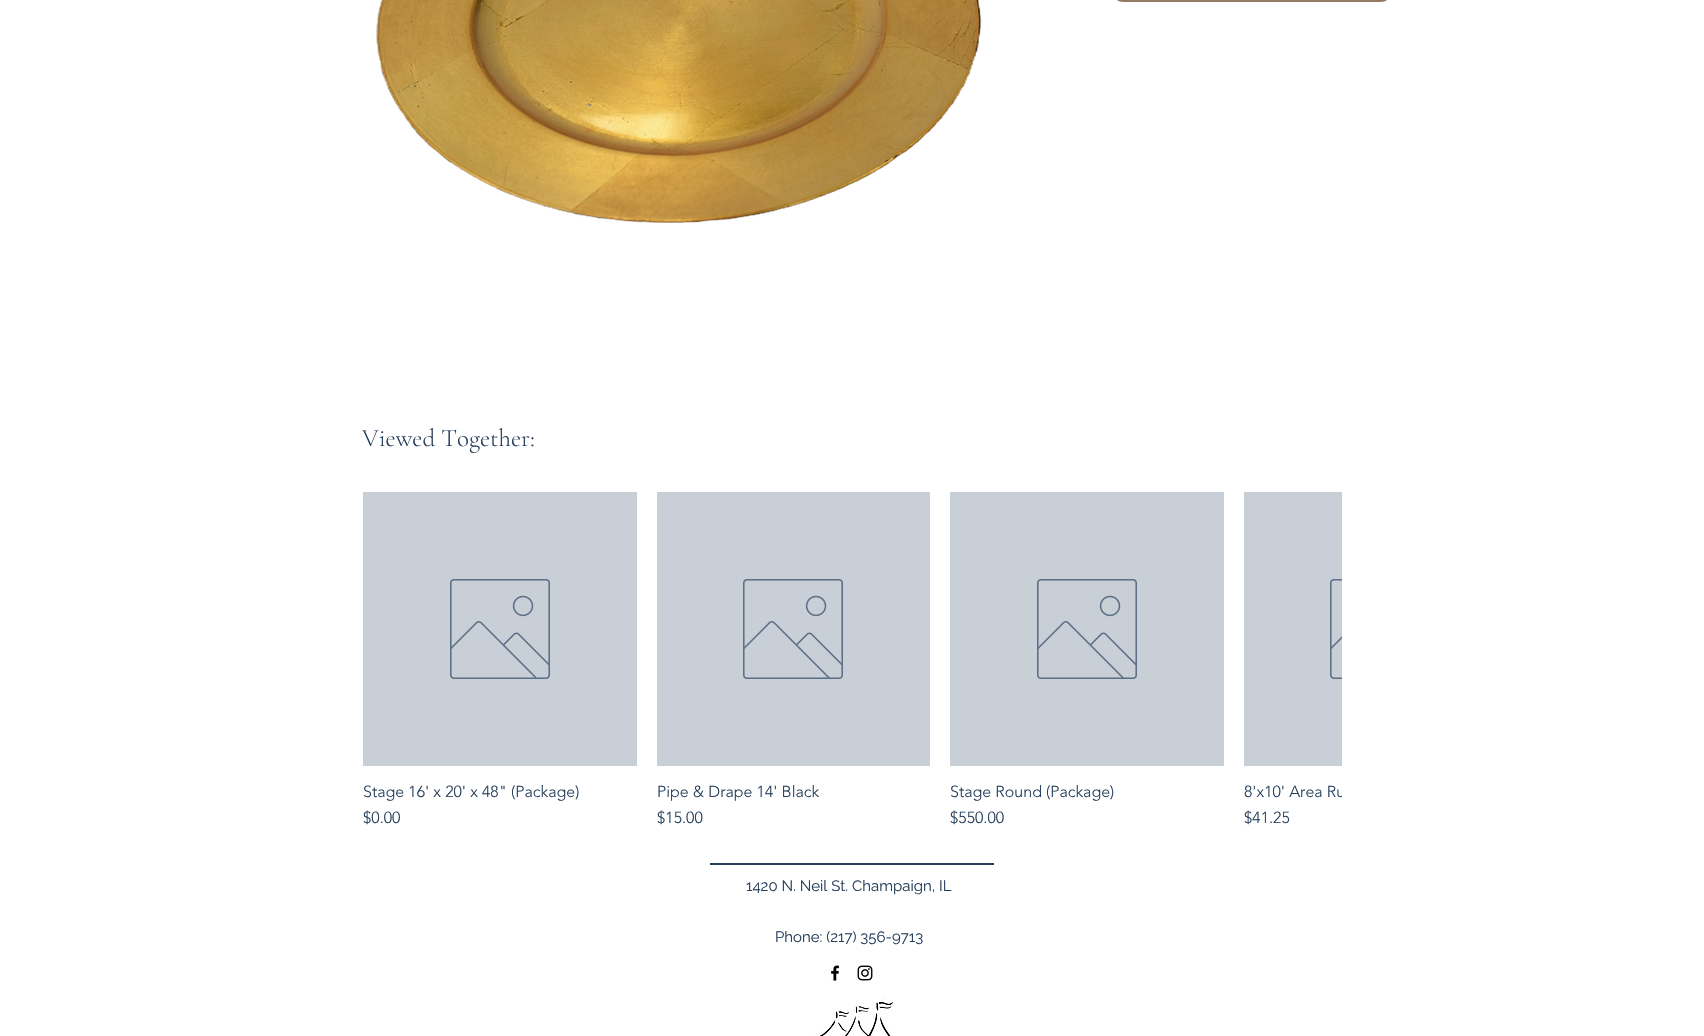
void draw(SkCanvas* c) {
SkPaint p;
p.setAntiAlias(true);
auto F=[&](const char* family, int weight, float size, bool italic = false){SkFontStyle style(weight, SkFontStyle::kNormal_Width,italic ? SkFontStyle::kItalic_Slant : SkFontStyle::kUpright_Slant);SkFont result(fontMgr->matchFamilyStyle(family, style), size);result.setSubpixel(true);return result;};
auto T=[&](const char* s, float x, float y, const SkFont& font){c->drawString(s, x, y, font, p);};
auto R=[&](float x, float y, float w, float h){c->drawRect(SkRect::MakeXYWH(x, y, w, h), p);};
auto Q=[&](float x, float y, float w, float h, float radius){c->drawRoundRect(SkRect::MakeXYWH(x, y, w, h), radius, radius, p);};
auto I=[&](const char* path, float x, float y, float w, float h){auto image = SkImages::DeferredFromEncodedData(SkData::MakeFromFileName(path));c->drawImageRect(image, SkRect::MakeXYWH(x, y, w, h), SkSamplingOptions());};
c->clear(0xffffffff);
p.setColor(0xff927a63);
Q(1112,-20,280,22,19.5);
I("1.png",376,0,606,223);
auto f1 = F("Cormorant Garamond",300,25);
p.setColor(0xff263f5b);
T("Viewed Together:",362,446,f1);
p.setColor(0xffc9cfd6);
R(363,492,274,274);
I("2.png",450,579,100,100);
auto f2 = F("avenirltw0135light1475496",300,16);
p.setColor(0xff263f5b);
T("Stage 16' x 20' x 48\" (Package)",363,797,f2);
T("$0.00",363,823,f2);
p.setColor(0xffc9cfd6);
R(657,492,273,274);
I("2.png",743,579,100,100);
p.setColor(0xff263f5b);
T("Pipe & Drape 14' Black",657,797,f2);
T("$15.00",657,823,f2);
p.setColor(0xffc9cfd6);
R(950,492,274,274);
I("2.png",1037,579,100,100);
p.setColor(0xff263f5b);
T("Stage Round (Package)",950,797,f2);
T("$550.00",950,823,f2);
p.setColor(0xffc9cfd6);
R(1244,492,98,274);
I("3.png",1330,579,12,100);
c->save();
c->clipRect(SkRect::MakeXYWH(362,492,980,358));
p.setColor(0xff263f5b);
T("8'x10' Area Ru",1244,797,f2);
c->restore();
T("$41.25",1244,823,f2);
R(710,863,284,2);
auto f3 = F("Raleway",400,15);
T("1420 N. Neil St. Champaign, IL",746,891,f3);
T("Phone: (217) 356-9713",775,942,f3);
I("4.png",831,965,9,16);
I("5.png",857,965,16,16);
I("6.png",809,998,84,38);
}
